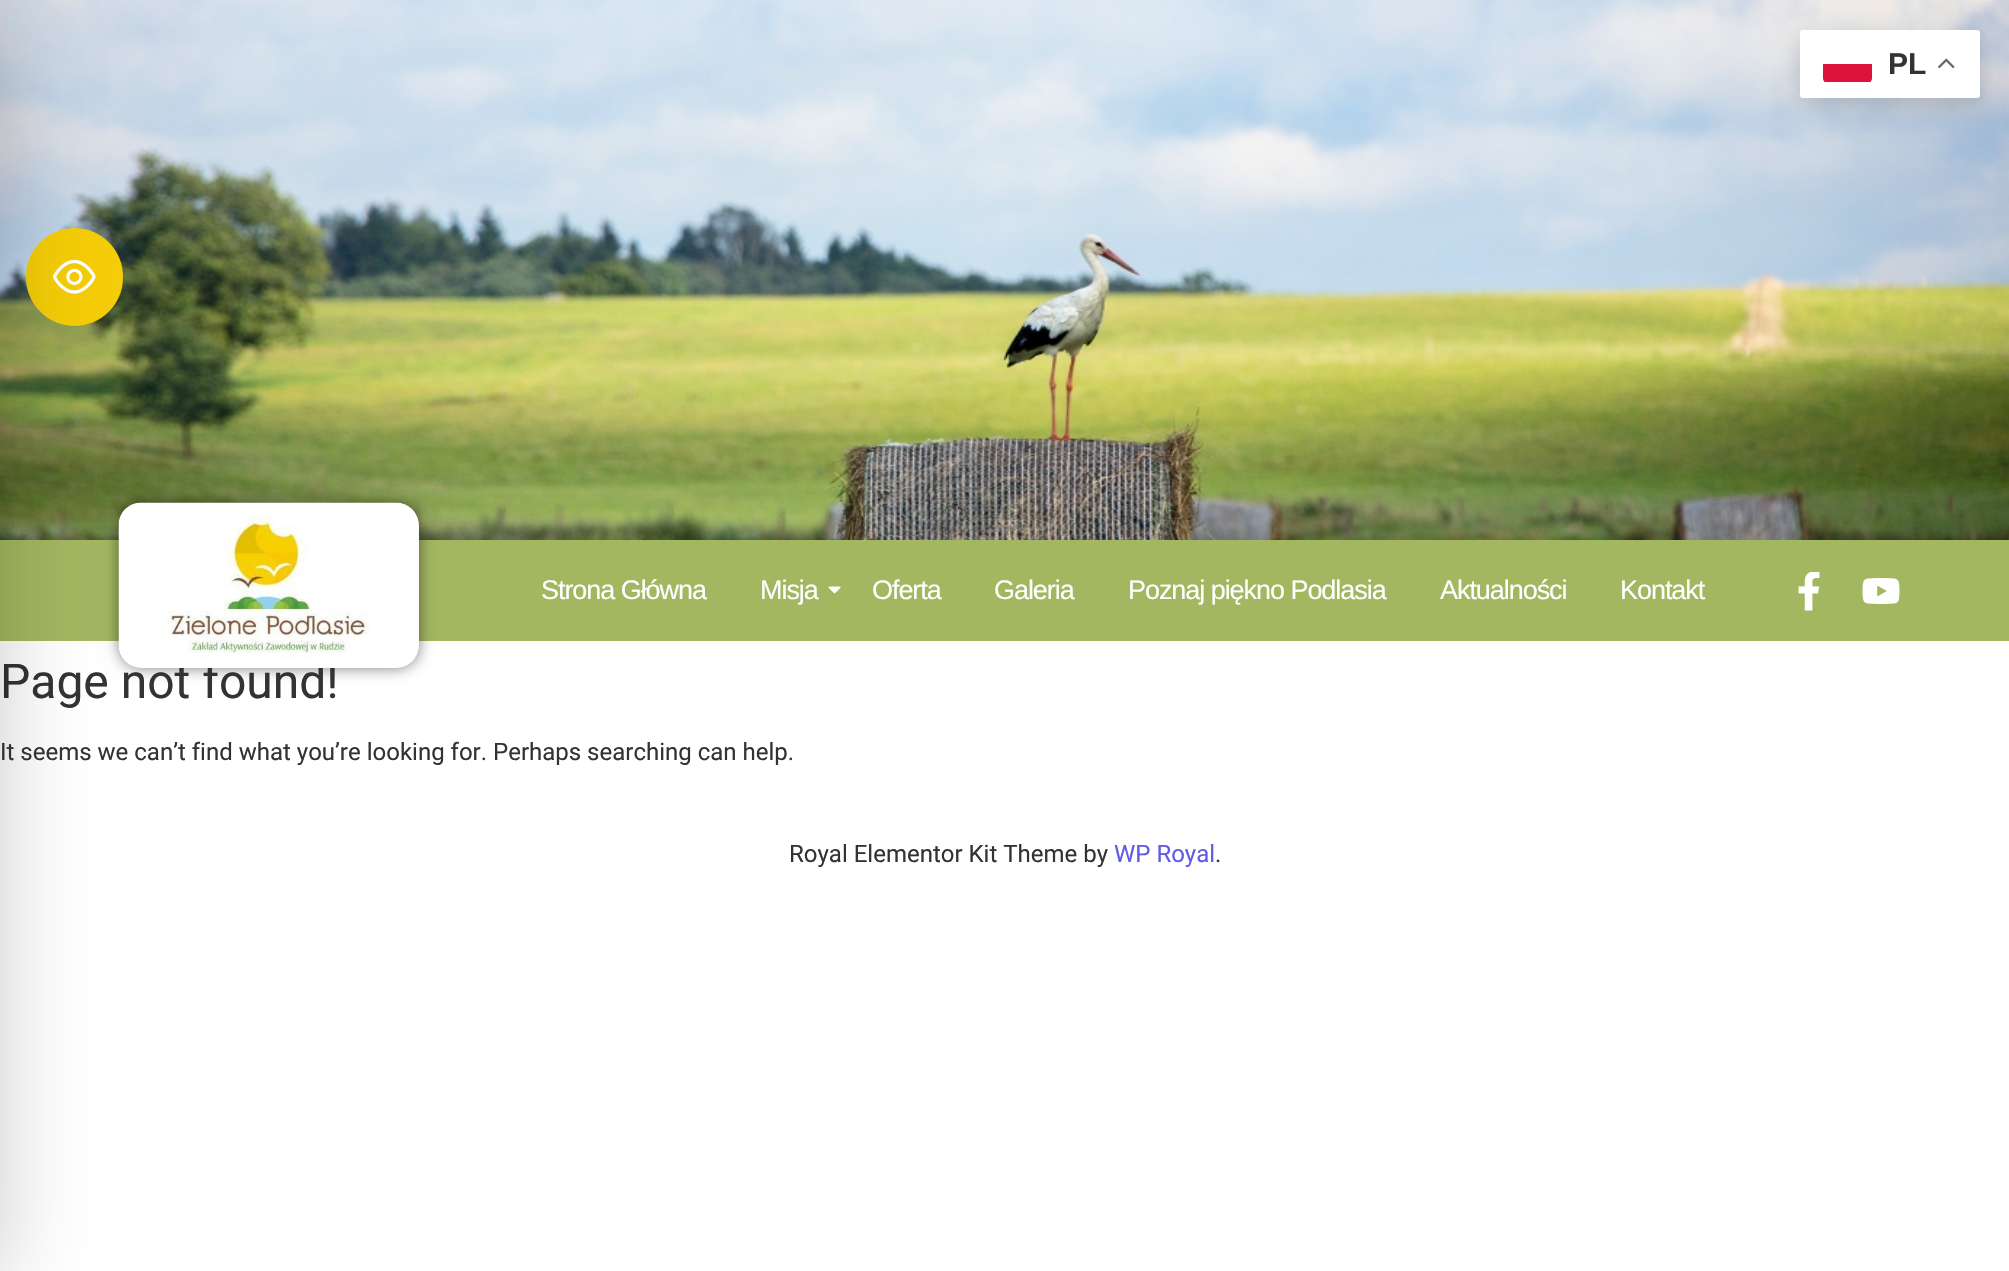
void draw(SkCanvas* c) {
SkPaint p;
p.setAntiAlias(true);
auto F=[&](const char* family, int weight, float size, bool italic = false){SkFontStyle style(weight, SkFontStyle::kNormal_Width,italic ? SkFontStyle::kItalic_Slant : SkFontStyle::kUpright_Slant);SkFont result(fontMgr->matchFamilyStyle(family, style), size);result.setSubpixel(true);return result;};
auto T=[&](const char* s, float x, float y, const SkFont& font){c->drawString(s, x, y, font, p);};
auto L=[&](const char* s, float x, float y, const SkFont& font, const SkPaint& ink, float letter, float word){std::vector<SkGlyphID> glyphs(font.countText(s, strlen(s), SkTextEncoding::kUTF8));std::vector<float> xs(glyphs.size());font.textToGlyphs(s, strlen(s), SkTextEncoding::kUTF8, glyphs);font.getXPos(glyphs, xs, x);float extra = 0;for (size_t i = 0; i < glyphs.size(); i++) {xs[i] += extra;extra += letter + word * (glyphs[i] == font.unicharToGlyph(' '));}c->drawTextBlob(SkTextBlob::MakeFromPosHGlyphs(glyphs, xs, y, font), 0, 0, ink);};
auto R=[&](float x, float y, float w, float h){c->drawRect(SkRect::MakeXYWH(x, y, w, h), p);};
auto Q=[&](float x, float y, float w, float h, float radius){c->drawRoundRect(SkRect::MakeXYWH(x, y, w, h), radius, radius, p);};
auto I=[&](const char* path, float x, float y, float w, float h){auto image = SkImages::DeferredFromEncodedData(SkData::MakeFromFileName(path));c->drawImageRect(image, SkRect::MakeXYWH(x, y, w, h), SkSamplingOptions());};
auto P=[&](const char* data, bool evenOdd = false){SkPath result = *SkParsePath::FromSVGString(data);if (evenOdd) result.setFillType(SkPathFillType::kEvenOdd);return result;};
c->clear(0xffffffff);
I("3.png",0,0,2009,540);
p.setColor(0xfff4cc07);
Q(26,228,97,98,48.5);
I("2.png",53,259,43,35);
p.setColor(0xffa2b760);
R(0,540,2009,101);
p.setColor(0x80000000);
p.setMaskFilter(SkMaskFilter::MakeBlur(kNormal_SkBlurStyle, 7.5));
c->drawRoundRect(SkRect::MakeXYWH(119,503,300,165),23,23,p);
p.setMaskFilter(nullptr);
auto f1 = F("Roboto",400,48);
p.setColor(0xff333333);
T("Page not found!",0,698,f1);
p.setColor(0xffffffff);
Q(119,503,300,165,23);
I("4.png",118,502,301,164);
p.setColor(0x33000000);
p.setMaskFilter(SkMaskFilter::MakeBlur(kNormal_SkBlurStyle, 45));
c->drawRect(SkRect::MakeXYWH(-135,15,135,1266),p);
p.setMaskFilter(nullptr);
p.setColor(0x26000000);
p.setMaskFilter(SkMaskFilter::MakeBlur(kNormal_SkBlurStyle, 11));
c->drawRoundRect(SkRect::MakeXYWH(1800,38,180,67),3,3,p);
p.setMaskFilter(nullptr);
p.setColor(0xffffffff);
Q(1800,30,180,68,3);
c->save();
c->clipPath(P("M1828 45h39c3 0 5 2 5 5v28c0 3-2 5-5 5h-39c-3 0-5-2-5-5v-28c0-3 2-5 5-5z"),true);
p.setColor(0xffdc143c);
R(1823,64,49,18);
c->restore();
auto f2 = F("Liberation Sans",700,30);
p.setColor(0xff333333);
T("PL",1888,74,f2);
I("1.png",1938,58,17,11);
auto f3 = F("Liberation Sans",400,27);
p.setColor(0xffffffff);
L("Strona Główna",541,599,f3,p,-1.05,0);
L("Misja",760,599,f3,p,-1.05,0);
I("5.png",828,586,13,8);
L("Oferta",872,599,f3,p,-1.05,0);
L("Galeria",994,599,f3,p,-1.05,0);
L("Poznaj piękno Podlasia",1128,599,f3,p,-1.05,0);
L("Aktualności",1440,599,f3,p,-1.05,0);
L("Kontakt",1620,599,f3,p,-1.05,0);
I("6.png",1798,572,22,39);
I("7.png",1862,578,38,26);
auto f4 = F("Roboto",400,24);
p.setColor(0xff333333);
T("It seems we can’t find what you’re looking for. Perhaps searching can help.",0,760,f4);
T("Royal Elementor Kit Theme by",789,862,f4);
p.setColor(0xff605be5);
T("WP Royal",1114,862,f4);
p.setColor(0xff333333);
T(".",1215,862,f4);
}
